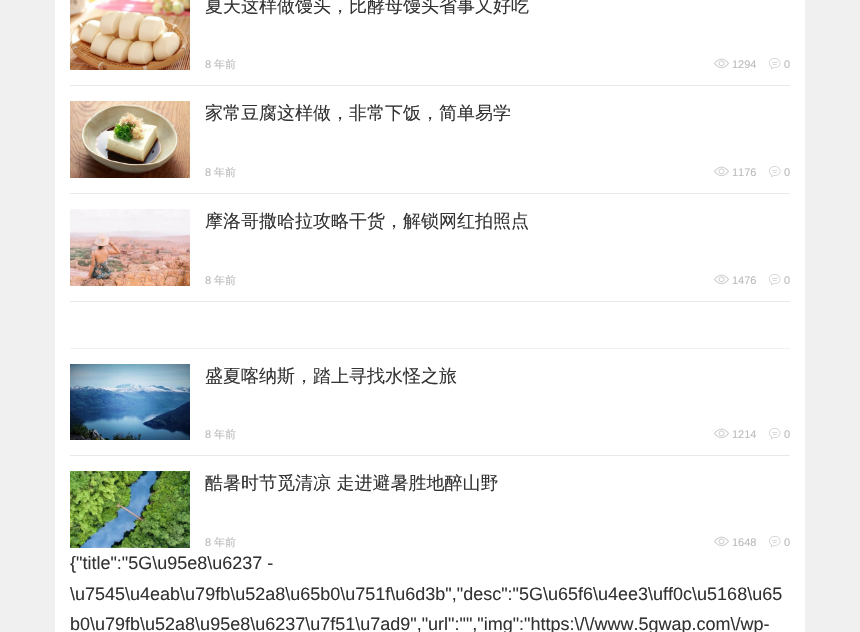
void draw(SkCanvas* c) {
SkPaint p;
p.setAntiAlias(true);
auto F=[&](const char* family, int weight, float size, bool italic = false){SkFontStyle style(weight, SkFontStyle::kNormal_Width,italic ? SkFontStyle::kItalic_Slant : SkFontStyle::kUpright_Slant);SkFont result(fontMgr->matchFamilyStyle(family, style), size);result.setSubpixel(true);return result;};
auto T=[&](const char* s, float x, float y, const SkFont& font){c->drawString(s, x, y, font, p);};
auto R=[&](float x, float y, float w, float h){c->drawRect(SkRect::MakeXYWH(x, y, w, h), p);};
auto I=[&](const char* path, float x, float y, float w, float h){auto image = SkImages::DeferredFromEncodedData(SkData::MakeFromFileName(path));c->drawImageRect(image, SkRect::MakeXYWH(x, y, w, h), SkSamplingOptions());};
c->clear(0xfff0f0f0);
p.setColor(0xffffffff);
R(55,0,750,632);
p.setColor(0xffe9e9e9);
R(70,85,720,1);
I("1.png",70,0,120,70);
auto f1 = F("WenQuanYi Zen Hei",500,18);
p.setColor(0xff333333);
T("夏天这样做馒头，比酵母馒头省事又好吃",205,12,f1);
auto f2 = F("Liberation Sans",400,11);
p.setColor(0xffbbbbbb);
T("8",205,68,f2);
auto f3 = F("WenQuanYi Zen Hei",500,11);
T("年前",214,68,f3);
I("2.png",714,58,15,11);
T("1294",732,68,f2);
I("3.png",769,58,12,12);
T("0",784,68,f2);
p.setColor(0xffe9e9e9);
R(70,193,720,1);
I("4.png",70,101,120,77);
p.setColor(0xff333333);
T("家常豆腐这样做，非常下饭，简单易学",205,119,f1);
p.setColor(0xffbbbbbb);
T("8",205,176,f2);
T("年前",214,176,f3);
I("2.png",714,166,15,11);
T("1176",732,176,f2);
I("3.png",769,166,12,12);
T("0",784,176,f2);
p.setColor(0xffe9e9e9);
R(70,301,720,1);
I("5.png",70,209,120,77);
p.setColor(0xff333333);
T("摩洛哥撒哈拉攻略干货，解锁网红拍照点",205,227,f1);
p.setColor(0xffbbbbbb);
T("8",205,284,f2);
T("年前",214,284,f3);
I("2.png",714,274,15,11);
T("1476",732,284,f2);
I("3.png",769,274,12,12);
T("0",784,284,f2);
p.setColor(0xfff0f0f0);
R(70,348,720,1);
p.setColor(0xffe9e9e9);
R(70,455,720,1);
I("6.png",70,364,120,76);
p.setColor(0xff333333);
T("盛夏喀纳斯，踏上寻找水怪之旅",205,382,f1);
p.setColor(0xffbbbbbb);
T("8",205,438,f2);
T("年前",214,438,f3);
I("2.png",714,428,15,11);
T("1214",732,438,f2);
I("3.png",769,428,12,12);
T("0",784,438,f2);
I("7.png",70,471,120,77);
p.setColor(0xff333333);
T("酷暑时节觅清凉 走进避暑胜地醉山野",205,489,f1);
p.setColor(0xffbbbbbb);
T("8",205,546,f2);
T("年前",214,546,f3);
I("2.png",714,536,15,11);
T("1648",732,546,f2);
I("3.png",769,536,12,12);
T("0",784,546,f2);
auto f4 = F("Liberation Sans",400,18);
p.setColor(0xff333333);
T("{\"title\":\"5G\\u95e8\\u6237 -",70,569,f4);
T("\\u7545\\u4eab\\u79fb\\u52a8\\u65b0\\u751f\\u6d3b\",\"desc\":\"5G\\u65f6\\u4ee3\\uff0c\\u5168\\u65",70,600,f4);
T("b0\\u79fb\\u52a8\\u95e8\\u6237\\u7f51\\u7ad9\",\"url\":\"\",\"img\":\"https:\\/\\/www.5gwap.com\\/wp-",70,630,f4);
}
